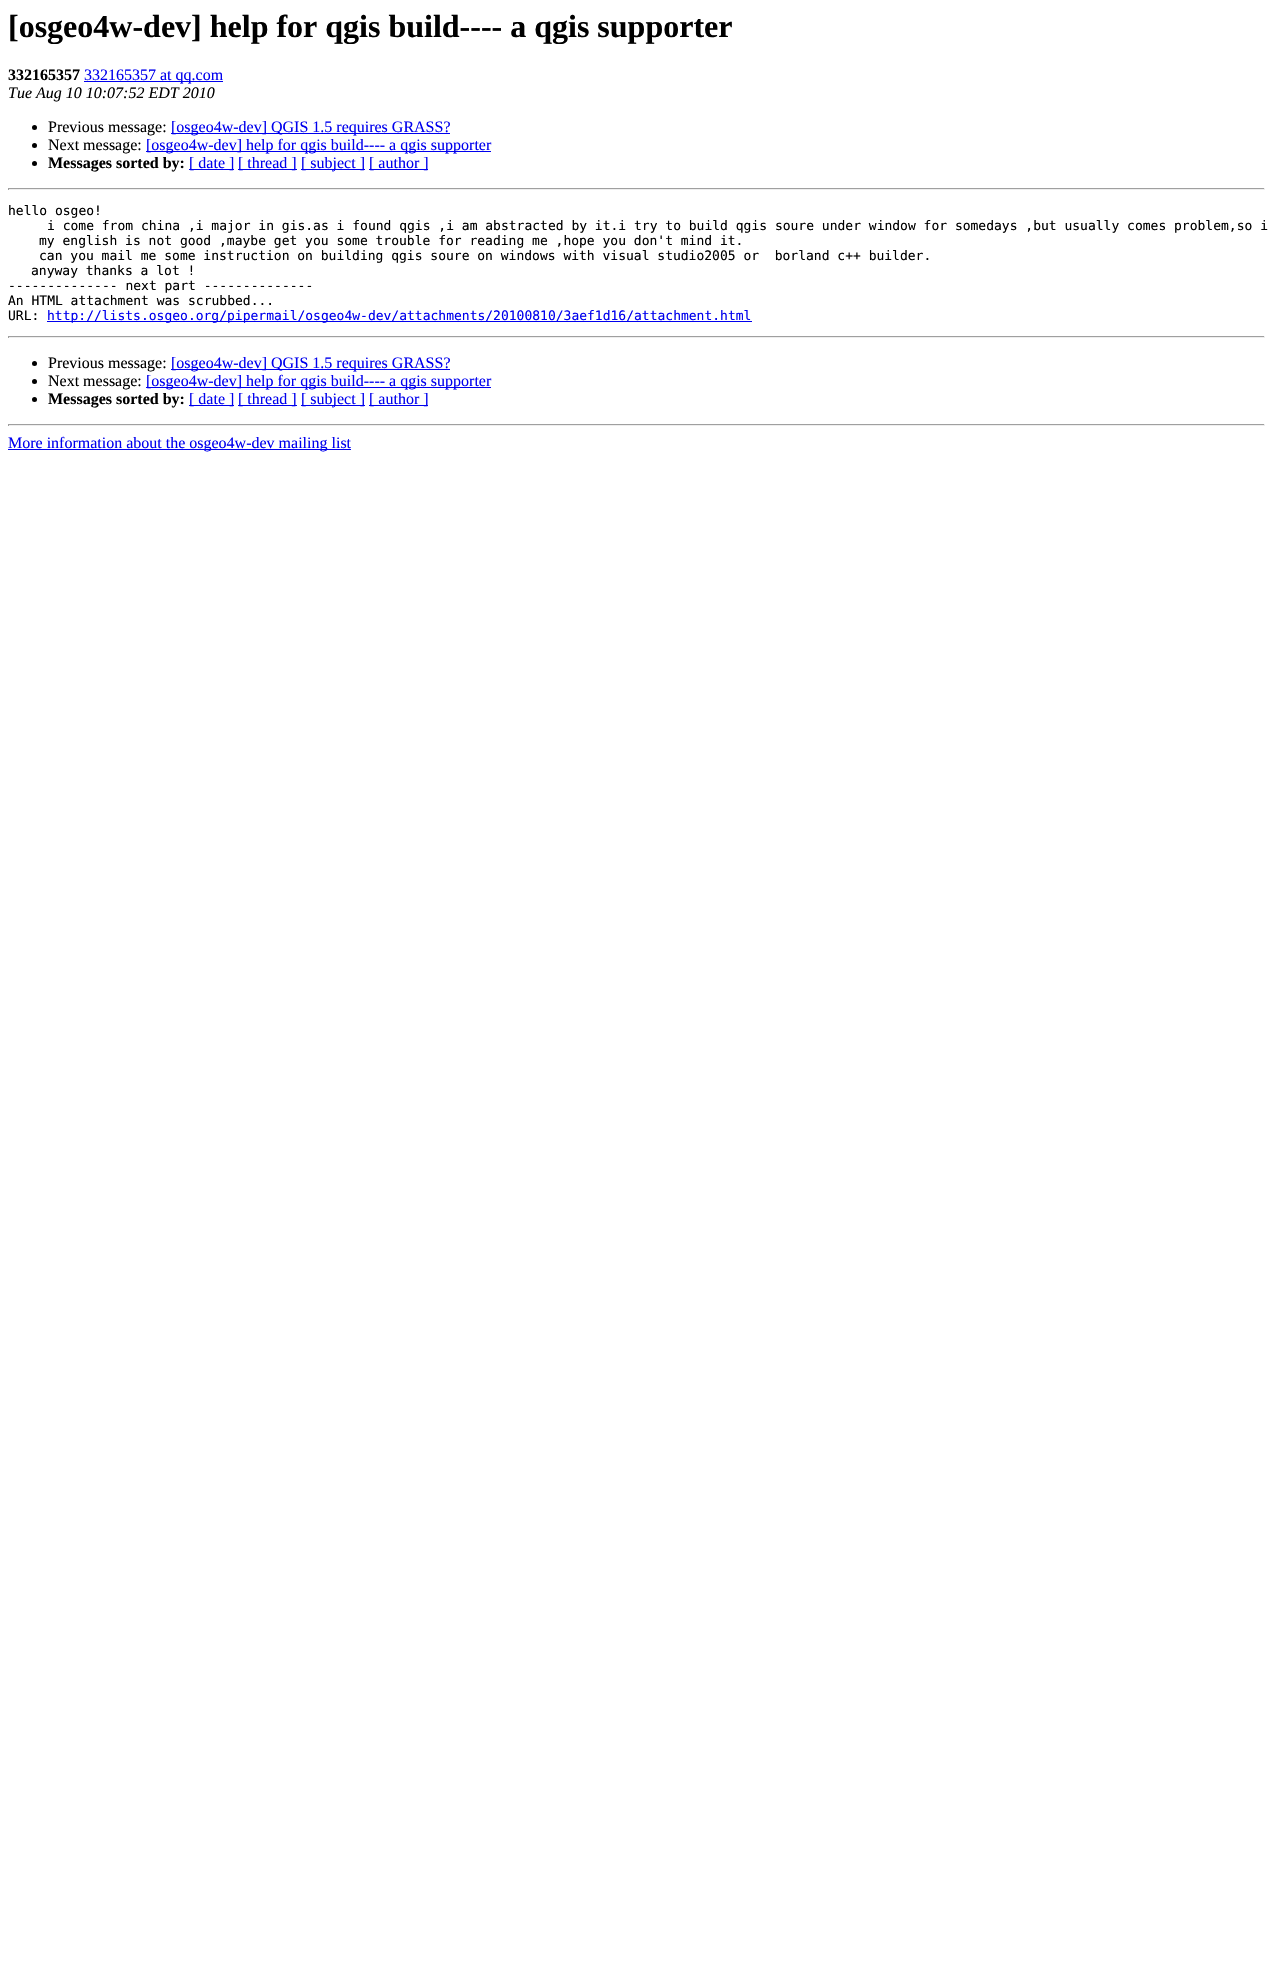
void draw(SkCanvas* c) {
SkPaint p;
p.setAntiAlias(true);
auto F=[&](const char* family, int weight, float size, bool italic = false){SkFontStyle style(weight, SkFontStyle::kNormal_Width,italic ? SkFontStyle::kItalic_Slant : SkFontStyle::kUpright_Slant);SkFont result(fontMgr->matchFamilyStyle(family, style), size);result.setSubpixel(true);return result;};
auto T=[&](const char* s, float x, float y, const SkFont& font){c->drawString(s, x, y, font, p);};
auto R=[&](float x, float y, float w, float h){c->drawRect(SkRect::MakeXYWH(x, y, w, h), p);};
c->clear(0xffffffff);
auto f1 = F("Liberation Serif",700,32);
p.setColor(0xff000000);
T("[osgeo4w-dev] help for qgis build---- a qgis supporter",8,37,f1);
auto f2 = F("Liberation Serif",700,16);
T("332165357",8,80,f2);
p.setColor(0xff0000ee);
R(84,81,139,1);
auto f3 = F("Liberation Serif",400,16);
T("332165357 at qq.com",84,80,f3);
auto f4 = F("Liberation Serif",400,16,true);
p.setColor(0xff000000);
T("Tue Aug 10 10:07:52 EDT 2010",8,98,f4);
c->drawCircle(34.5,127.5,2.5,p);
T("Previous message:",48,132,f3);
p.setColor(0xff0000ee);
R(171,133,279,1);
T("[osgeo4w-dev] QGIS 1.5 requires GRASS?",171,132,f3);
p.setColor(0xff000000);
c->drawCircle(34.5,145.5,2.5,p);
T("Next message:",48,150,f3);
p.setColor(0xff0000ee);
R(146,151,345,1);
T("[osgeo4w-dev] help for qgis build---- a qgis supporter",146,150,f3);
p.setColor(0xff000000);
c->drawCircle(34.5,163.5,2.5,p);
T("Messages sorted by:",48,168,f2);
p.setColor(0xff0000ee);
R(189,169,45,1);
T("[ date ]",189,168,f3);
R(238,169,59,1);
T("[ thread ]",238,168,f3);
R(301,169,64,1);
T("[ subject ]",301,168,f3);
R(369,169,59,1);
T("[ author ]",369,168,f3);
p.setColor(0xff9f9f9f);
R(8,188,1257,1);
p.setColor(0xffeeeeee);
R(1264,188,1,2);
R(8,189,1257,1);
p.setColor(0xff9f9f9f);
R(8,188,1,2);
auto f5 = F("DejaVu Sans Mono",400,13);
p.setColor(0xff000000);
T("hello osgeo!",8,215,f5);
T("i come from china ,i major in gis.as i found qgis ,i am abstracted by it.i try to build qgis soure under window for somedays ,but usually comes problem,so i",47,230,f5);
T("my english is not good ,maybe get you some trouble for reading me ,hope you don't mind it.",39,245,f5);
T("can you mail me some instruction on building qgis soure on windows with visual studio2005 or  borland c++ builder.",39,260,f5);
T("anyway thanks a lot !",31,275,f5);
T("-------------- next part --------------",8,290,f5);
T("An HTML attachment was scrubbed...",8,305,f5);
T("URL:",8,320,f5);
p.setColor(0xff0000ee);
R(47,321,705,1);
T("http://lists.osgeo.org/pipermail/osgeo4w-dev/attachments/20100810/3aef1d16/attachment.html",47,320,f5);
p.setColor(0xff9f9f9f);
R(8,336,1257,1);
p.setColor(0xffeeeeee);
R(1264,336,1,2);
R(8,337,1257,1);
p.setColor(0xff9f9f9f);
R(8,336,1,2);
p.setColor(0xff000000);
c->drawCircle(34.5,363.5,2.5,p);
T("Previous message:",48,368,f3);
p.setColor(0xff0000ee);
R(171,369,279,1);
T("[osgeo4w-dev] QGIS 1.5 requires GRASS?",171,368,f3);
p.setColor(0xff000000);
c->drawCircle(34.5,381.5,2.5,p);
T("Next message:",48,386,f3);
p.setColor(0xff0000ee);
R(146,387,345,1);
T("[osgeo4w-dev] help for qgis build---- a qgis supporter",146,386,f3);
p.setColor(0xff000000);
c->drawCircle(34.5,399.5,2.5,p);
T("Messages sorted by:",48,404,f2);
p.setColor(0xff0000ee);
R(189,405,45,1);
T("[ date ]",189,404,f3);
R(238,405,59,1);
T("[ thread ]",238,404,f3);
R(301,405,64,1);
T("[ subject ]",301,404,f3);
R(369,405,59,1);
T("[ author ]",369,404,f3);
p.setColor(0xff9f9f9f);
R(8,424,1257,1);
p.setColor(0xffeeeeee);
R(1264,424,1,2);
R(8,425,1257,1);
p.setColor(0xff9f9f9f);
R(8,424,1,2);
p.setColor(0xff0000ee);
R(8,449,343,1);
T("More information about the osgeo4w-dev mailing list",8,448,f3);
}
